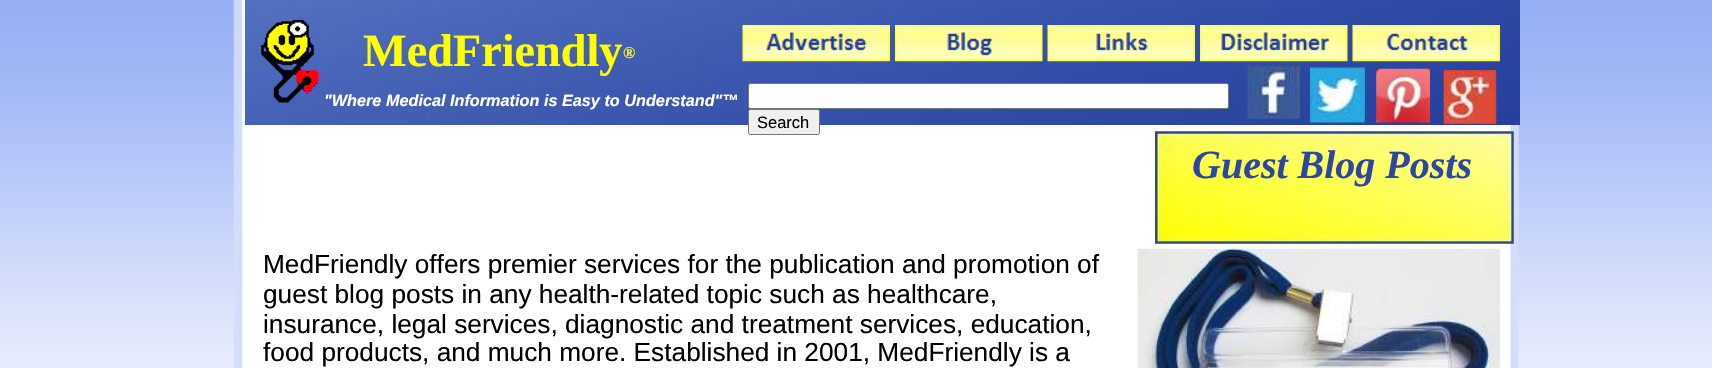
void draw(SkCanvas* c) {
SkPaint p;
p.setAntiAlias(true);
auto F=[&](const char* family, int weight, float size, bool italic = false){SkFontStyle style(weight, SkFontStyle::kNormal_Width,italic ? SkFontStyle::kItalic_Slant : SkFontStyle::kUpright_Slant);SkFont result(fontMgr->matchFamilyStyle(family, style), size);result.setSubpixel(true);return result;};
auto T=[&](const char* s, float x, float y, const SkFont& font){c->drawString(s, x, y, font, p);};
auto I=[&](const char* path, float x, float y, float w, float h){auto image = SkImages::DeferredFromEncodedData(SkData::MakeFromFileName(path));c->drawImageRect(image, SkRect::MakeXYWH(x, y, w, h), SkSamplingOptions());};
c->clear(0xffffffff);
I("1.png",0,0,1712,368);
I("2.png",233,0,1286,368);
I("3.png",245,0,1275,125);
I("4.png",261,20,58,83);
auto f1 = F("Liberation Serif",700,46.25);
p.setColor(0xffffff00);
T("MedFriendly",363,66,f1);
auto f2 = F("Liberation Serif",700,16.5);
T("®",623,58,f2);
I("5.png",742,25,148,37);
I("6.png",895,25,148,37);
I("7.png",1047,25,148,37);
I("8.png",1200,25,148,37);
I("9.png",1352,25,148,37);
auto f3 = F("Liberation Sans",700,16.25,true);
p.setColor(0xffffffff);
T("\"Where Medical Information is Easy to Understand\"™",324,106,f3);
I("10.png",1247,65,55,54);
I("11.png",1310,67,55,56);
I("12.png",1376,68,54,55);
I("13.png",1443,70,54,54);
c->drawRoundRect(SkRect::MakeXYWH(748.5,83.5,480,25),2,2,p);
p.setStroke(true);
p.setStrokeWidth(1);
p.setColor(0xff767676);
c->drawRoundRect(SkRect::MakeXYWH(748.5,83.5,480,25),2,2,p);
p.setStroke(false);
p.setColor(0xffefefef);
c->drawRoundRect(SkRect::MakeXYWH(748.5,109.5,71,25),2,2,p);
p.setStroke(true);
p.setColor(0xff767676);
c->drawRoundRect(SkRect::MakeXYWH(748.5,109.5,71,25),2,2,p);
auto f4 = F("Liberation Sans",400,16.5);
p.setStroke(false);
p.setColor(0xff000000);
T("Search",757,128,f4);
I("14.png",1155,131,359,113);
auto f5 = F("Liberation Serif",700,40,true);
p.setColor(0xff2d46a3);
T("Guest Blog Posts",1192,178,f5);
auto f6 = F("Liberation Sans",400,26.25);
p.setColor(0xff000000);
T("MedFriendly offers premier services for the publication and promotion of",263,273,f6);
T("guest blog posts in any health-related topic such as healthcare,",263,303,f6);
T("insurance, legal services, diagnostic and treatment services, education,",263,333,f6);
T("food products, and much more. Established in 2001, MedFriendly is a",263,361,f6);
I("15.png",1137,248,363,120);
}
